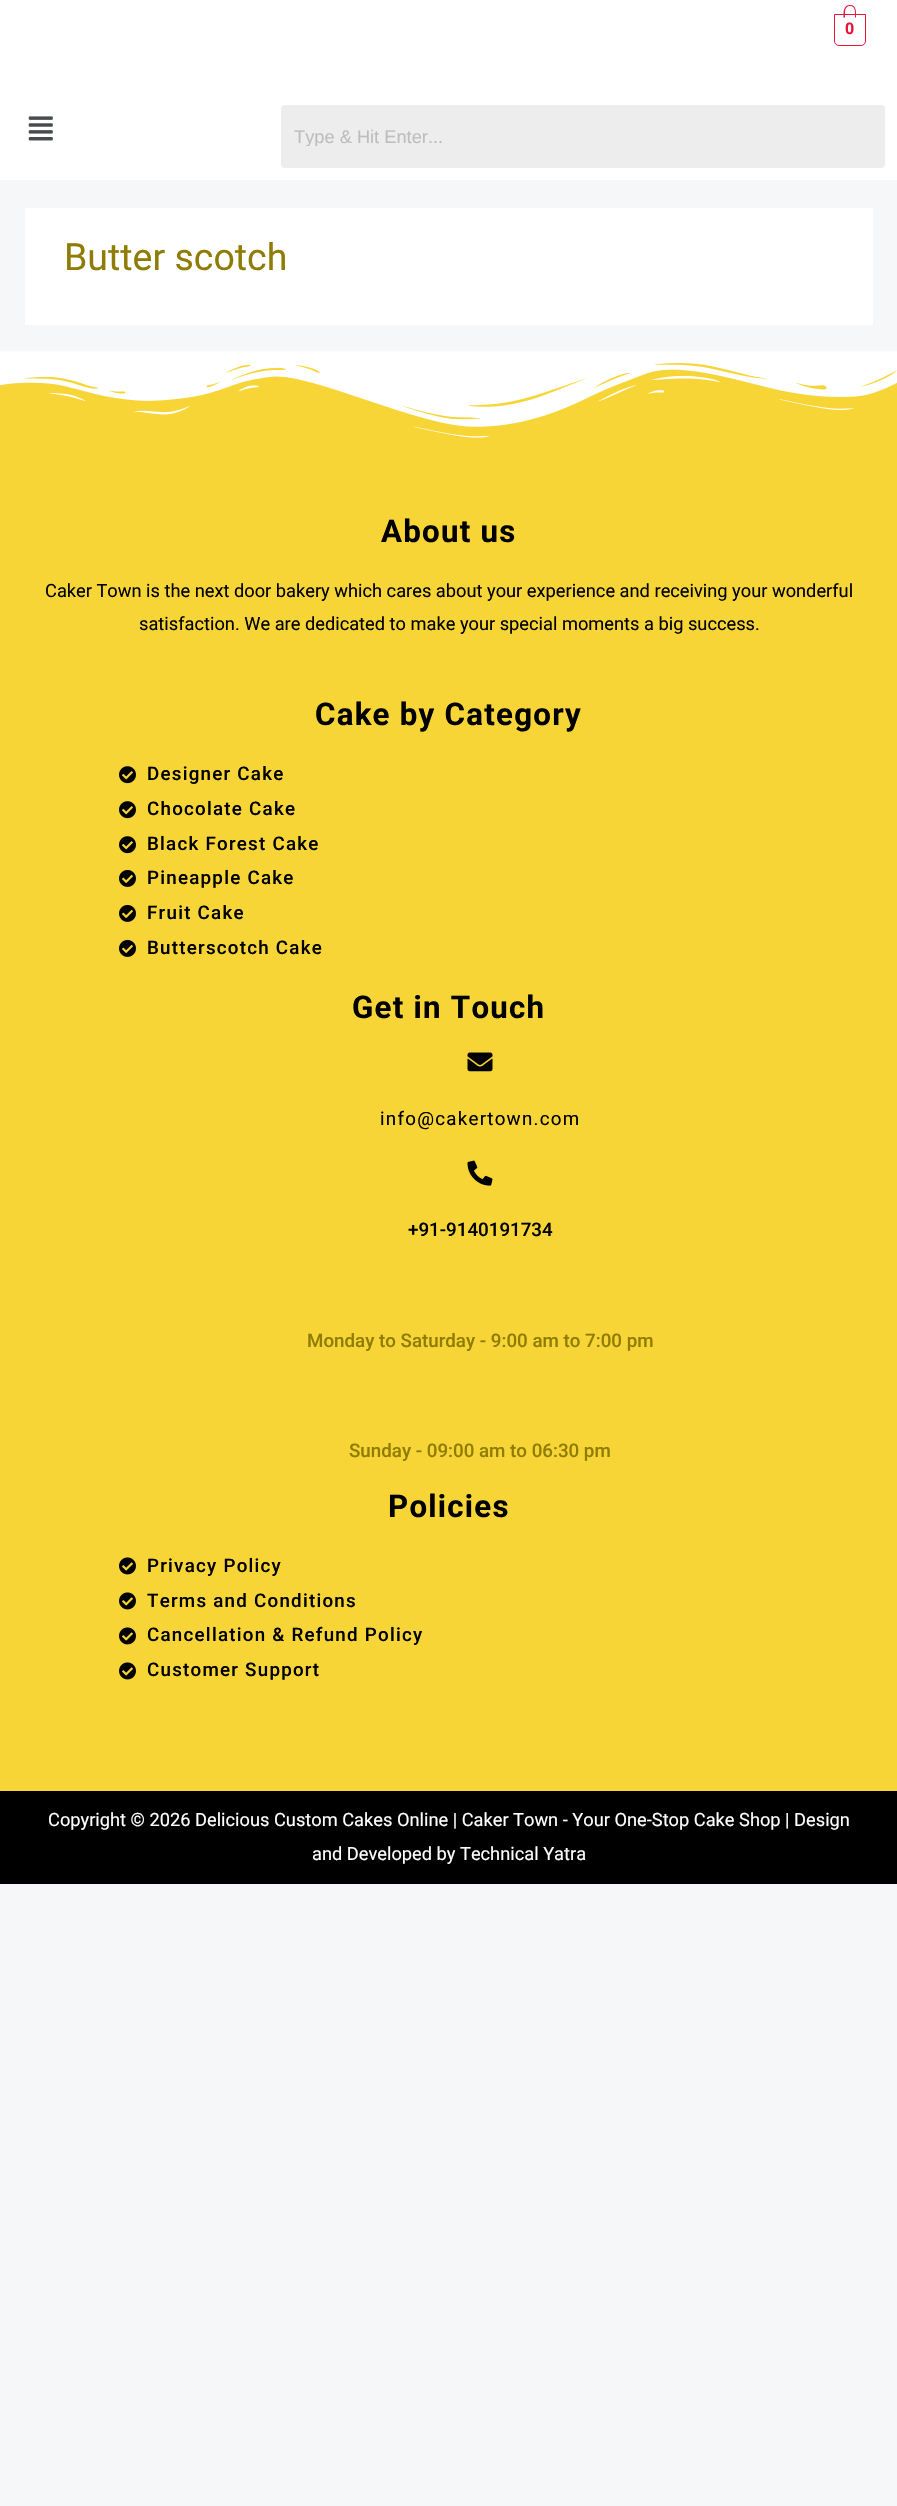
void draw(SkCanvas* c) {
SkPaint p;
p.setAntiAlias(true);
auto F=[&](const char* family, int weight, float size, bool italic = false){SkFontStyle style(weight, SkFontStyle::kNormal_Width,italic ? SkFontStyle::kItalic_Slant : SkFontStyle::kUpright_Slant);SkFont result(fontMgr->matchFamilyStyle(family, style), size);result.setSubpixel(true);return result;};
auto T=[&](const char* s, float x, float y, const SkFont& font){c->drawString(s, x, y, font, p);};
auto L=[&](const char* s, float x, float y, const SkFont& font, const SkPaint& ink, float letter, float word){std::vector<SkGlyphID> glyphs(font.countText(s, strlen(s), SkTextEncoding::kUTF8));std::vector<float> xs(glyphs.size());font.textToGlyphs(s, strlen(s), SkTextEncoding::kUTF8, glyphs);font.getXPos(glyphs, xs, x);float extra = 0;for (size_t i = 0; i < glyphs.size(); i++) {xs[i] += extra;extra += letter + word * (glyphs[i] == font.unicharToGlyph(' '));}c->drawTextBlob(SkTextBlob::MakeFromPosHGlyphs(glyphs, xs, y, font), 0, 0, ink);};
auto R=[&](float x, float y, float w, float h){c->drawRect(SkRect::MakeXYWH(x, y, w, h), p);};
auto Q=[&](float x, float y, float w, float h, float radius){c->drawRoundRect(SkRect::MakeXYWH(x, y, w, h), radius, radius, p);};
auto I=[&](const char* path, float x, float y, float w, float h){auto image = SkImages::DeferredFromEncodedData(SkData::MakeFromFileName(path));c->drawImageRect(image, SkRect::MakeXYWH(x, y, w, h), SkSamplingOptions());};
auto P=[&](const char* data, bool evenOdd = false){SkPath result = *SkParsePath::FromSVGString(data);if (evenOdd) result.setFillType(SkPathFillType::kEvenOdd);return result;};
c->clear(0xfff5f7f9);
p.setColor(0xffffffff);
R(0,0,897,180);
p.setStroke(true);
p.setStrokeWidth(1);
p.setColor(0xffec1339);
c->drawPath(P("M834.5 14.5h31v26.5c0 2.5-2 4.5-4.5 4.5h-22c-2.5 0-4.5-2-4.5-4.5z"),p);
p.setStroke(false);
c->drawPath(P("M850 5c7 0 6 7.5 6 12.5h-12.5c0-5-.5-12.5 6.5-12.5zm0 1c6 0 5 7.5 5 11.5h-10c0-4-1-11.5 5-11.5z",true),p);
auto f1 = F("Roboto",700,16);
T("0",845,34,f1);
I("1.png",28,116,25,25);
p.setColor(0xffededed);
Q(281,105,604,63,4);
c->save();
c->clipRect(SkRect::MakeXYWH(294,126,579,20));
auto f2 = F("Liberation Sans",400,18.25);
p.setColor(0xffbdbdbd);
T("Type & Hit Enter...",294,143,f2);
c->restore();
p.setColor(0xffffffff);
R(25,208,848,117);
auto f3 = F("Roboto",400,37.5);
p.setColor(0xff8e7c04);
T("Butter scotch",64,270,f3);
p.setColor(0xfff8d536);
R(0,363,897,1428);
I("2.png",0,351,897,87);
auto f4 = F("Roboto",700,31.25);
p.setColor(0xff000000);
L("About us",381,542,f4,p,1.25,0);
auto f5 = F("Roboto",400,18.25);
T("Caker Town is the next door bakery which cares about your experience and receiving your wonderful",45,597,f5);
T("satisfaction. We are dedicated to make your special moments a big success.",139,630,f5);
L("Cake by Category",315,725,f4,p,1.25,0);
I("3.png",119,766,17,18);
auto f6 = F("Roboto",500,18.75);
L("Designer Cake",147,780,f6,p,1.25,0);
I("3.png",119,801,17,18);
L("Chocolate Cake",147,815,f6,p,1.25,0);
I("3.png",119,836,17,18);
L("Black Forest Cake",147,850,f6,p,1.25,0);
I("4.png",119,870,17,17);
L("Pineapple Cake",147,884,f6,p,1.25,0);
I("4.png",119,905,17,17);
L("Fruit Cake",147,919,f6,p,1.25,0);
I("4.png",119,940,17,17);
L("Butterscotch Cake",147,954,f6,p,1.25,0);
L("Get in Touch",352,1018,f4,p,1.25,0);
I("5.png",467,1052,26,20);
auto f7 = F("Roboto",400,18.75);
L("info@cakertown.com",380,1125,f7,p,1.25,0);
I("6.png",467,1160,26,26);
T("+91-9140191734",408,1236,f6);
p.setColor(0xff8e7c04);
T("Monday to Saturday - 9:00 am to 7:00 pm",307,1347,f6);
T("Sunday - 09:00 am to 06:30 pm",349,1457,f6);
p.setColor(0xff000000);
L("Policies",388,1517,f4,p,1.25,0);
I("7.png",119,1557,17,18);
L("Privacy Policy",147,1572,f6,p,1.25,0);
I("7.png",119,1592,17,18);
L("Terms and Conditions",147,1607,f6,p,1.25,0);
I("7.png",119,1627,17,18);
L("Cancellation & Refund Policy",147,1641,f6,p,1.25,0);
I("7.png",119,1662,17,18);
L("Customer Support",147,1676,f6,p,1.25,0);
R(0,1791,897,93);
p.setColor(0xffffffff);
T("Copyright © 2026 Delicious Custom Cakes Online | Caker Town - Your One-Stop Cake Shop | Design",48,1826,f5);
T("and Developed by Technical Yatra",312,1860,f5);
}
